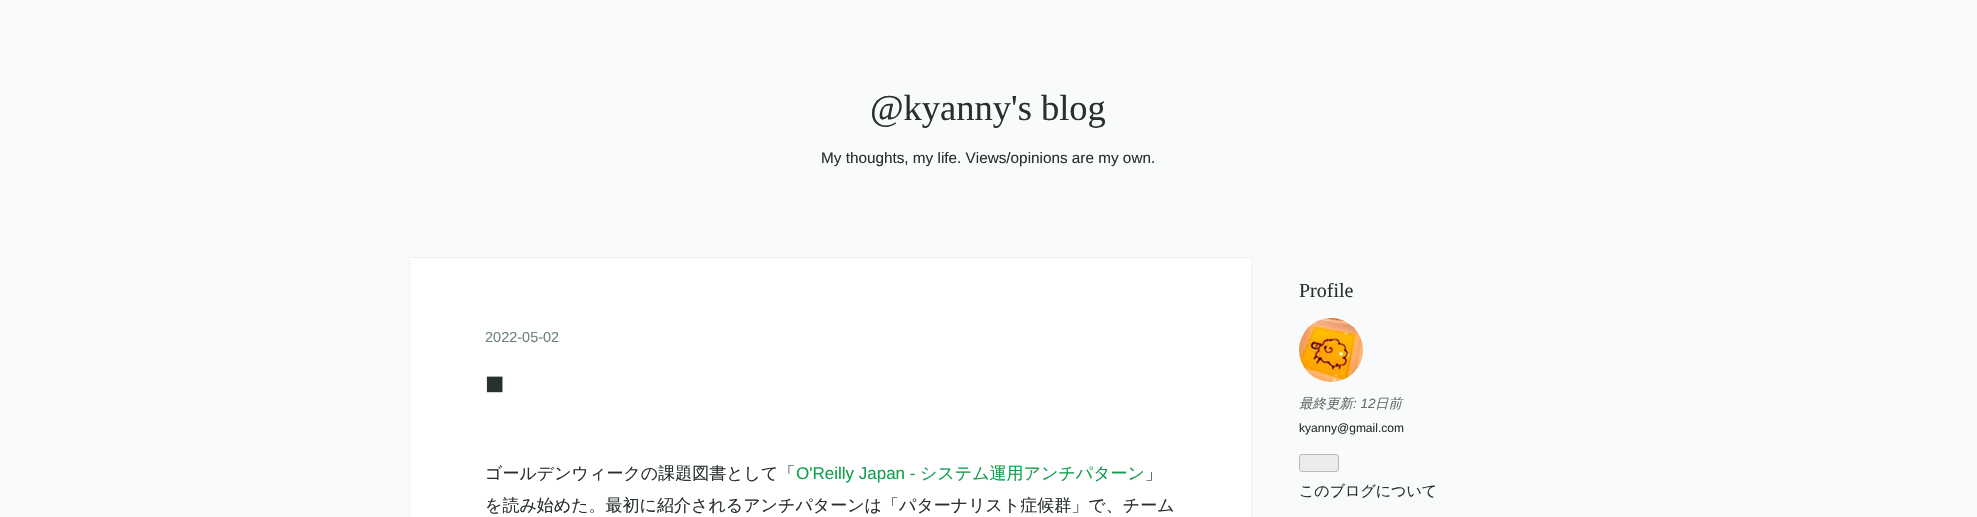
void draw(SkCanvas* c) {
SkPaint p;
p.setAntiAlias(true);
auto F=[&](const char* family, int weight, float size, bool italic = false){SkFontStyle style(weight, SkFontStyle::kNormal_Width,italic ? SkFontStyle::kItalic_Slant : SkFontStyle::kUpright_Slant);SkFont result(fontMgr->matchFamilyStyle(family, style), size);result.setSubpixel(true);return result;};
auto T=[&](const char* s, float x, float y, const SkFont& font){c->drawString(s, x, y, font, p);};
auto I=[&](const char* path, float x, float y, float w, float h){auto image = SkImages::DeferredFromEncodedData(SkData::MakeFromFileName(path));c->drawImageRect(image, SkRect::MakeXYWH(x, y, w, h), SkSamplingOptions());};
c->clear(0xfff9fafb);
auto f1 = F("Liberation Serif",400,36.5);
p.setColor(0xff293030);
T("@kyanny's blog",870,120,f1);
auto f2 = F("Liberation Sans",400,15.3);
T("My thoughts, my life. Views/opinions are my own.",821,163,f2);
p.setColor(0xffffffff);
c->drawRect(SkRect::MakeXYWH(409.5,257.5,842,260),p);
p.setStroke(true);
p.setStrokeWidth(1);
p.setColor(0xfff0f1f1);
c->drawRect(SkRect::MakeXYWH(409.5,257.5,842,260),p);
auto f3 = F("Liberation Sans",400,14.5);
p.setStroke(false);
p.setColor(0xff6f8383);
T("2022-05-02",485,342,f3);
auto f4 = F("Liberation Serif",400,32);
p.setColor(0xff293030);
T("■",485,394,f4);
auto f5 = F("WenQuanYi Zen Hei",500,17);
T("ゴールデンウィークの課題図書として「",485,479,f5);
auto f6 = F("Liberation Sans",400,17);
p.setColor(0xff119e4d);
T("O'Reilly Japan -",796,479,f6);
T("システム運用アンチパターン",920,479,f5);
p.setColor(0xff293030);
T("」",1145,479,f5);
T("を読み始めた。最初に紹介されるアンチパターンは「パターナリスト症候群」で、チーム",485,511,f5);
auto f7 = F("Liberation Serif",400,20);
T("Profile",1299,297,f7);
I("1.png",1299,318,64,64);
auto f8 = F("WenQuanYi Zen Hei",500,13.5,true);
p.setColor(0xff676d6d);
T("最終更新",1299,408,f8);
auto f9 = F("Liberation Sans",400,13.5,true);
T(": 12",1353,408,f9);
T("日前",1375,408,f8);
auto f10 = F("Liberation Sans",400,12);
p.setColor(0xff293030);
T("kyanny@gmail.com",1299,432,f10);
p.setColor(0xffebebeb);
c->drawRoundRect(SkRect::MakeXYWH(1299.5,454.5,39,17),2.5,2.5,p);
p.setStroke(true);
p.setColor(0xffbbbbbb);
c->drawRoundRect(SkRect::MakeXYWH(1299.5,454.5,39,17),2.5,2.5,p);
auto f11 = F("WenQuanYi Zen Hei",500,15);
p.setStroke(false);
p.setColor(0xff293030);
T("このブログについて",1299,496,f11);
}
